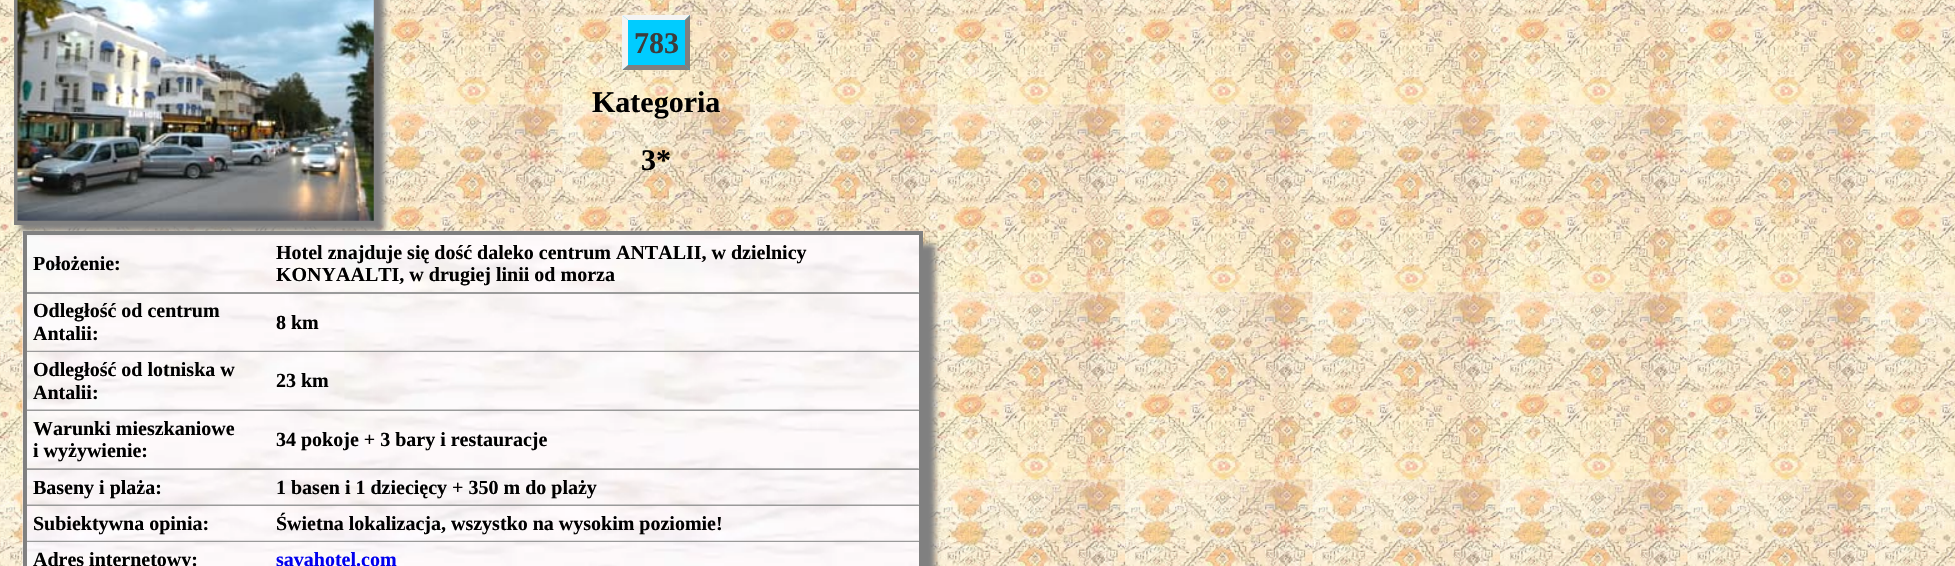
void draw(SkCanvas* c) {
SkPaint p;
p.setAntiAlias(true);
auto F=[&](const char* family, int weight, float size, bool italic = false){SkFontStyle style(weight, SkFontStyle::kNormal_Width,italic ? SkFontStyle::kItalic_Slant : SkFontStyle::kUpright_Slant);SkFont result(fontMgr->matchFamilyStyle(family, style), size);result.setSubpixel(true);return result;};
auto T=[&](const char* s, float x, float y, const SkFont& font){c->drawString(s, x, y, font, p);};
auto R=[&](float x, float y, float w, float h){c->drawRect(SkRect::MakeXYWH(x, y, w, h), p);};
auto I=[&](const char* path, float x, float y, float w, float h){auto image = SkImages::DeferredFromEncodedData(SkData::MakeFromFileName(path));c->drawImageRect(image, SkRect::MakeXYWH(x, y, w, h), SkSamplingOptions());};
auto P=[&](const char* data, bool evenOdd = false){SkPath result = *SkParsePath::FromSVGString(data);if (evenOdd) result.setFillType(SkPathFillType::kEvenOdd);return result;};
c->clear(0xffffffff);
I("1.png",0,0,1955,566);
p.setColor(0xff808080);
p.setMaskFilter(SkMaskFilter::MakeBlur(kNormal_SkBlurStyle, 3));
c->drawRect(SkRect::MakeXYWH(35,244,900,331),p);
p.setMaskFilter(nullptr);
I("3.png",22,230,901,336);
R(23,231,900,4);
p.setColor(0xff9a9a9a);
R(24,293,897,1);
R(24,351,3,1);
R(24,410,897,1);
R(24,469,897,1);
R(24,505,897,1);
R(24,541,3,1);
p.setColor(0xff808080);
R(23,231,4,335);
p.setMaskFilter(SkMaskFilter::MakeBlur(kNormal_SkBlurStyle, 3));
c->drawRect(SkRect::MakeXYWH(20,-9,364,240),p);
p.setMaskFilter(nullptr);
p.setStroke(true);
p.setStrokeWidth(4);
c->drawRect(SkRect::MakeXYWH(16,-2,360,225),p);
I("2.png",17,0,357,221);
p.setStroke(false);
p.setColor(0xff00ccff);
R(623,15,67,55);
auto f1 = F("Liberation Serif",700,30);
p.setColor(0xff3c3c3c);
T("783",634,53,f1);
p.setColor(0xfff4f4f4);
c->drawPath(P("M622 15h68l-5 5h-57z"),p);
p.setColor(0xff7f7f7f);
c->drawPath(P("M690 15v55l-5-5v-45z"),p);
c->drawPath(P("M690 70h-68l6-5h57z"),p);
p.setColor(0xfff4f4f4);
c->drawPath(P("M622 70v-55l6 5v45z"),p);
p.setColor(0xff000000);
T("Kategoria",592,112,f1);
T("3*",641,170,f1);
p.setColor(0xff9a9a9a);
R(918,351,3,1);
R(918,541,3,1);
p.setColor(0xff808080);
R(919,231,4,335);
auto f2 = F("Liberation Serif",700,20);
p.setColor(0xff000000);
T("Położenie:",33,270,f2);
T("Hotel znajduje się dość daleko centrum ANTALII, w dzielnicy",276,259,f2);
T("KONYAALTI, w drugiej linii od morza",276,281,f2);
T("Odległość od centrum",33,317,f2);
T("Antalii:",33,340,f2);
T("8 km",276,329,f2);
T("Odległość od lotniska w",33,376,f2);
T("Antalii:",33,399,f2);
T("23 km",276,387,f2);
T("Warunki mieszkaniowe",33,435,f2);
T("i wyżywienie:",33,457,f2);
T("34 pokoje + 3 bary i restauracje",276,446,f2);
T("Baseny i plaża:",33,494,f2);
T("1 basen i 1 dziecięcy + 350 m do plaży",276,494,f2);
T("Subiektywna opinia:",33,530,f2);
T("Świetna lokalizacja, wszystko na wysokim poziomie!",276,530,f2);
T("Adres internetowy:",33,566,f2);
p.setColor(0xff0000ee);
T("savahotel.com",276,566,f2);
}
